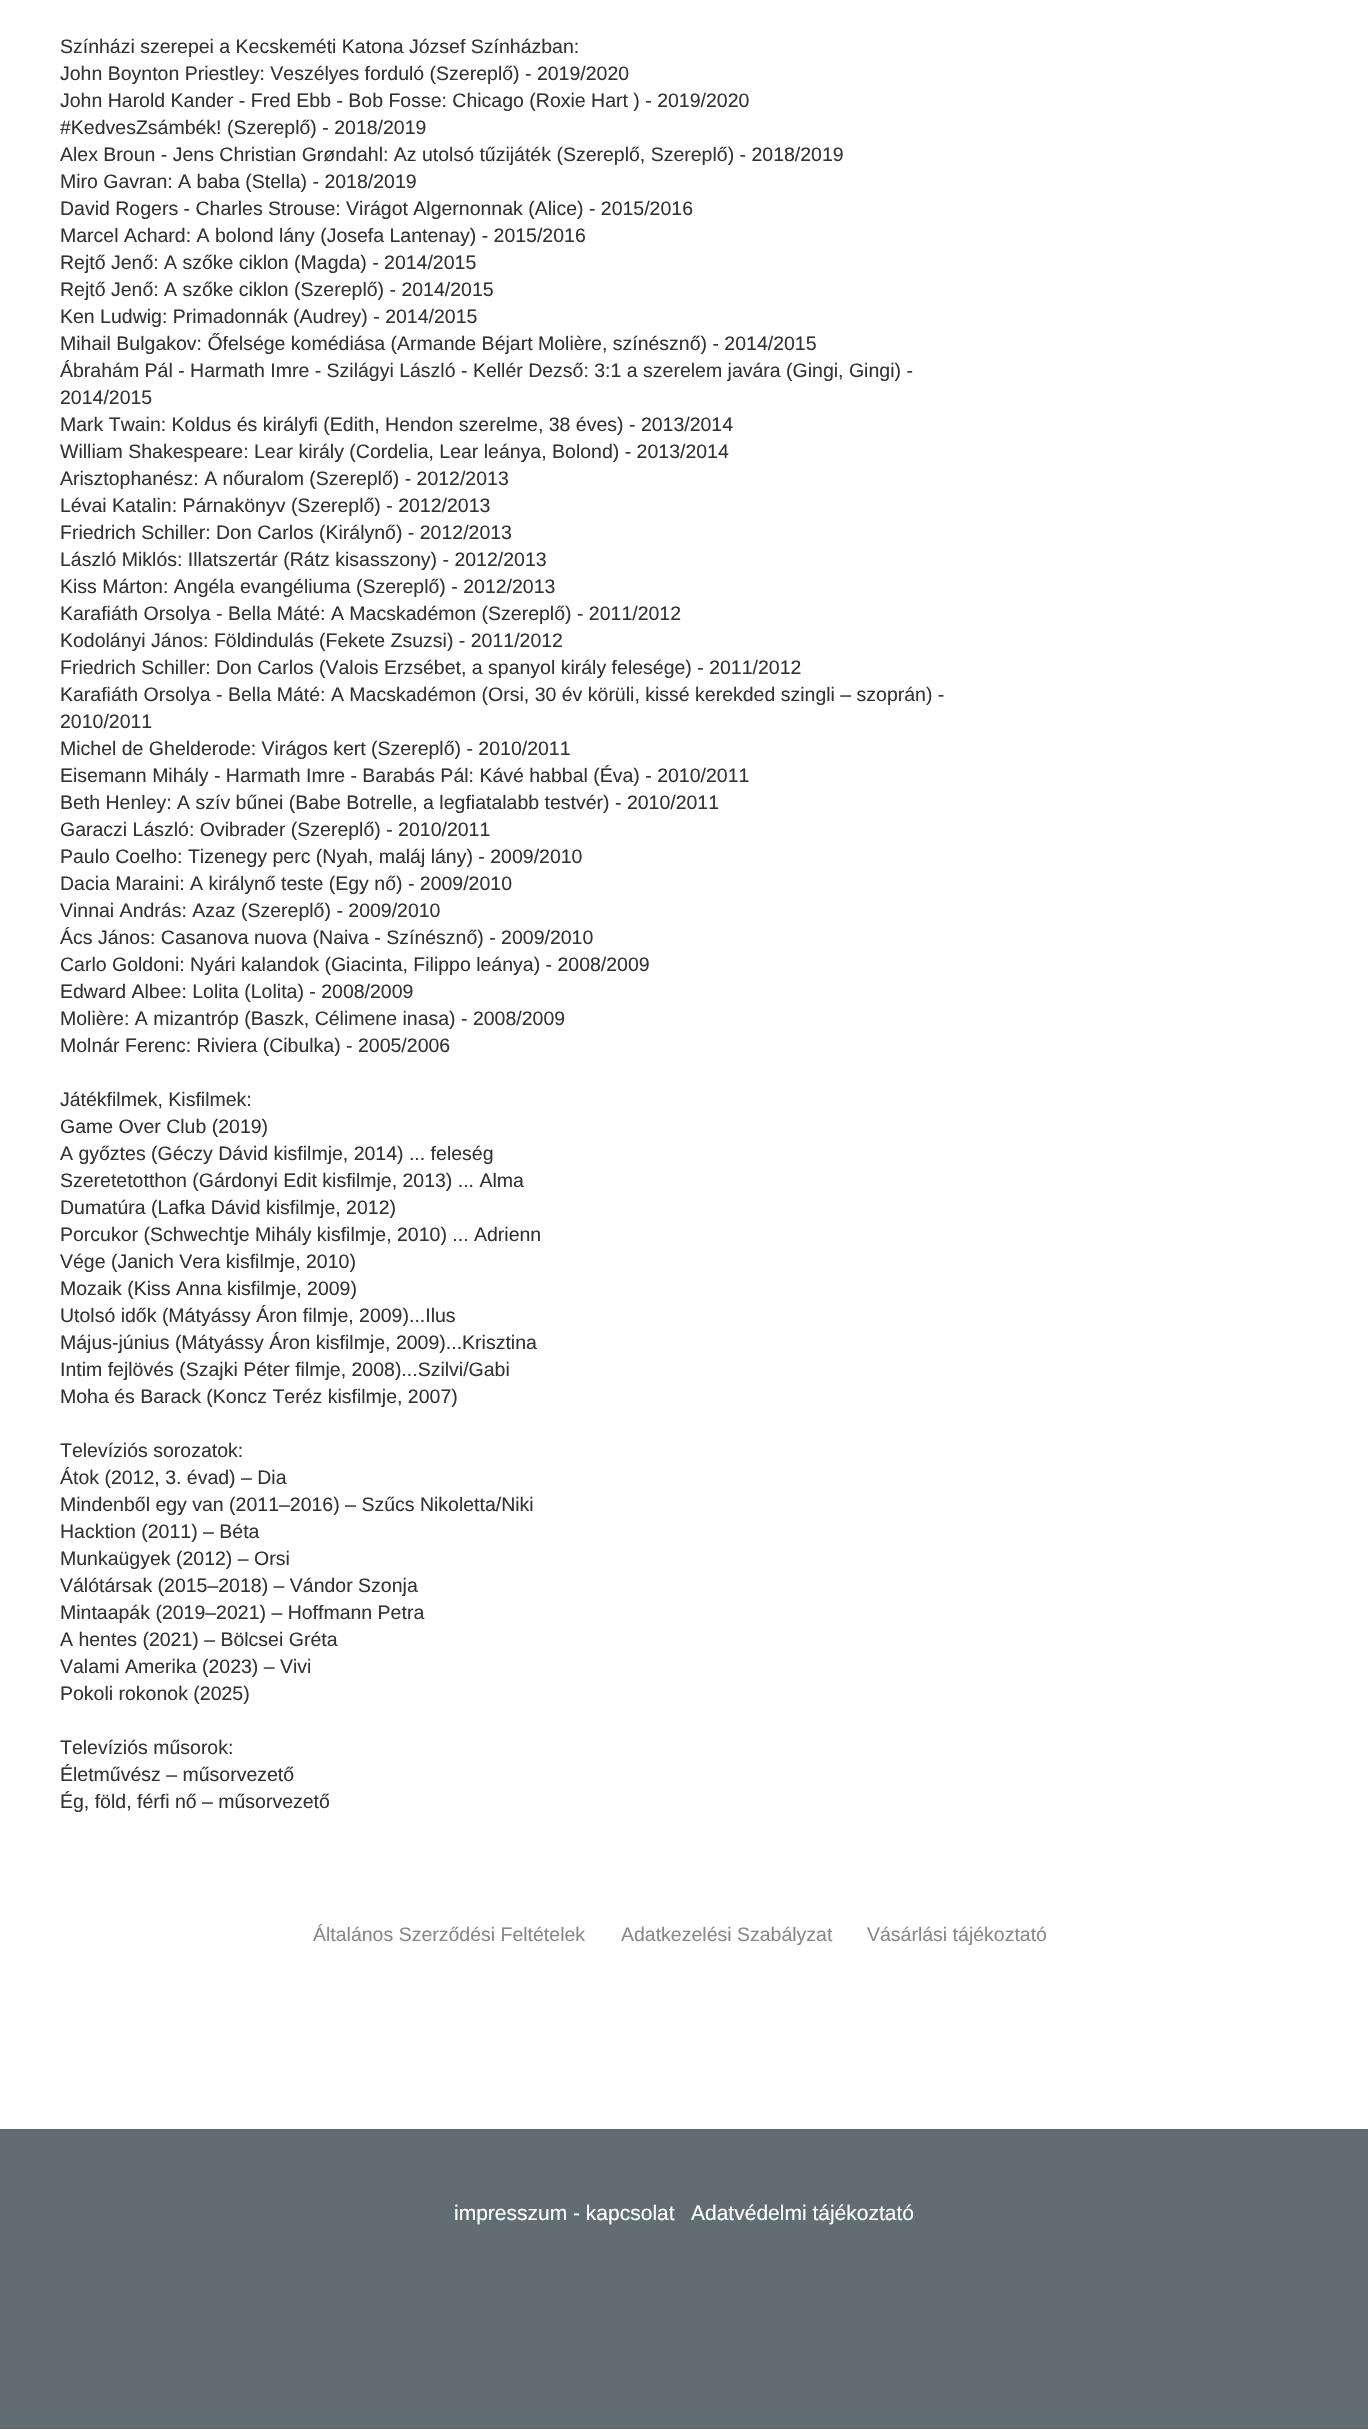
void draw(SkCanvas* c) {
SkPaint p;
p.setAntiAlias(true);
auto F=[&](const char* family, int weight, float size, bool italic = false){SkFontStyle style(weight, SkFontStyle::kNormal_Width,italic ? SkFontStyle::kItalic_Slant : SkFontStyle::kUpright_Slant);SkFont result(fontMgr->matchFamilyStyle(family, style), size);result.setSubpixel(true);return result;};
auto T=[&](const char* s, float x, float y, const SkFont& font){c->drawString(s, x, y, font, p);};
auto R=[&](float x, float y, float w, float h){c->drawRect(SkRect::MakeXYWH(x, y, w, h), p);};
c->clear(0xffffffff);
auto f1 = F("Liberation Sans",400,19.5);
p.setColor(0xff333333);
T("Színházi szerepei a Kecskeméti Katona József Színházban:",60,53,f1);
T("John Boynton Priestley: Veszélyes forduló (Szereplő) - 2019/2020",60,80,f1);
T("John Harold Kander - Fred Ebb - Bob Fosse: Chicago (Roxie Hart ) - 2019/2020",60,107,f1);
T("#KedvesZsámbék! (Szereplő) - 2018/2019",60,134,f1);
T("Alex Broun - Jens Christian Grøndahl: Az utolsó tűzijáték (Szereplő, Szereplő) - 2018/2019",60,161,f1);
T("Miro Gavran: A baba (Stella) - 2018/2019",60,188,f1);
T("David Rogers - Charles Strouse: Virágot Algernonnak (Alice) - 2015/2016",60,215,f1);
T("Marcel Achard: A bolond lány (Josefa Lantenay) - 2015/2016",60,242,f1);
T("Rejtő Jenő: A szőke ciklon (Magda) - 2014/2015",60,269,f1);
T("Rejtő Jenő: A szőke ciklon (Szereplő) - 2014/2015",60,296,f1);
T("Ken Ludwig: Primadonnák (Audrey) - 2014/2015",60,323,f1);
T("Mihail Bulgakov: Őfelsége komédiása (Armande Béjart Molière, színésznő) - 2014/2015",60,350,f1);
T("Ábrahám Pál - Harmath Imre - Szilágyi László - Kellér Dezső: 3:1 a szerelem javára (Gingi, Gingi) -",60,377,f1);
T("2014/2015",60,404,f1);
T("Mark Twain: Koldus és királyfi (Edith, Hendon szerelme, 38 éves) - 2013/2014",60,431,f1);
T("William Shakespeare: Lear király (Cordelia, Lear leánya, Bolond) - 2013/2014",60,458,f1);
T("Arisztophanész: A nőuralom (Szereplő) - 2012/2013",60,485,f1);
T("Lévai Katalin: Párnakönyv (Szereplő) - 2012/2013",60,512,f1);
T("Friedrich Schiller: Don Carlos (Királynő) - 2012/2013",60,539,f1);
T("László Miklós: Illatszertár (Rátz kisasszony) - 2012/2013",60,566,f1);
T("Kiss Márton: Angéla evangéliuma (Szereplő) - 2012/2013",60,593,f1);
T("Karafiáth Orsolya - Bella Máté: A Macskadémon (Szereplő) - 2011/2012",60,620,f1);
T("Kodolányi János: Földindulás (Fekete Zsuzsi) - 2011/2012",60,647,f1);
T("Friedrich Schiller: Don Carlos (Valois Erzsébet, a spanyol király felesége) - 2011/2012",60,674,f1);
T("Karafiáth Orsolya - Bella Máté: A Macskadémon (Orsi, 30 év körüli, kissé kerekded szingli – szoprán) -",60,701,f1);
T("2010/2011",60,728,f1);
T("Michel de Ghelderode: Virágos kert (Szereplő) - 2010/2011",60,755,f1);
T("Eisemann Mihály - Harmath Imre - Barabás Pál: Kávé habbal (Éva) - 2010/2011",60,782,f1);
T("Beth Henley: A szív bűnei (Babe Botrelle, a legfiatalabb testvér) - 2010/2011",60,809,f1);
T("Garaczi László: Ovibrader (Szereplő) - 2010/2011",60,836,f1);
T("Paulo Coelho: Tizenegy perc (Nyah, maláj lány) - 2009/2010",60,863,f1);
T("Dacia Maraini: A királynő teste (Egy nő) - 2009/2010",60,890,f1);
T("Vinnai András: Azaz (Szereplő) - 2009/2010",60,917,f1);
T("Ács János: Casanova nuova (Naiva - Színésznő) - 2009/2010",60,944,f1);
T("Carlo Goldoni: Nyári kalandok (Giacinta, Filippo leánya) - 2008/2009",60,971,f1);
T("Edward Albee: Lolita (Lolita) - 2008/2009",60,998,f1);
T("Molière: A mizantróp (Baszk, Célimene inasa) - 2008/2009",60,1025,f1);
T("Molnár Ferenc: Riviera (Cibulka) - 2005/2006",60,1052,f1);
T("Játékfilmek, Kisfilmek:",60,1106,f1);
T("Game Over Club (2019)",60,1133,f1);
T("A győztes (Géczy Dávid kisfilmje, 2014) ... feleség",60,1160,f1);
T("Szeretetotthon (Gárdonyi Edit kisfilmje, 2013) ... Alma",60,1187,f1);
T("Dumatúra (Lafka Dávid kisfilmje, 2012)",60,1214,f1);
T("Porcukor (Schwechtje Mihály kisfilmje, 2010) ... Adrienn",60,1241,f1);
T("Vége (Janich Vera kisfilmje, 2010)",60,1268,f1);
T("Mozaik (Kiss Anna kisfilmje, 2009)",60,1295,f1);
T("Utolsó idők (Mátyássy Áron filmje, 2009)...Ilus",60,1322,f1);
T("Május-június (Mátyássy Áron kisfilmje, 2009)...Krisztina",60,1349,f1);
T("Intim fejlövés (Szajki Péter filmje, 2008)...Szilvi/Gabi",60,1376,f1);
T("Moha és Barack (Koncz Teréz kisfilmje, 2007)",60,1403,f1);
T("Televíziós sorozatok:",60,1457,f1);
T("Átok (2012, 3. évad) – Dia",60,1484,f1);
T("Mindenből egy van (2011–2016) – Szűcs Nikoletta/Niki",60,1511,f1);
T("Hacktion (2011) – Béta",60,1538,f1);
T("Munkaügyek (2012) – Orsi",60,1565,f1);
T("Válótársak (2015–2018) – Vándor Szonja",60,1592,f1);
T("Mintaapák (2019–2021) – Hoffmann Petra",60,1619,f1);
T("A hentes (2021) – Bölcsei Gréta",60,1646,f1);
T("Valami Amerika (2023) – Vivi",60,1673,f1);
T("Pokoli rokonok (2025)",60,1700,f1);
T("Televíziós műsorok:",60,1754,f1);
T("Életművész – műsorvezető",60,1781,f1);
T("Ég, föld, férfi nő – műsorvezető",60,1808,f1);
p.setColor(0xff888888);
T("Általános Szerződési Feltételek",313,1941,f1);
T("Adatkezelési Szabályzat",621,1941,f1);
T("Vásárlási tájékoztató",867,1941,f1);
p.setColor(0xff626c73);
R(0,2129,1368,300);
auto f2 = F("Liberation Sans",400,21);
p.setColor(0xffffffff);
T("impresszum - kapcsolat",454,2220,f2);
T("Adatvédelmi tájékoztató",691,2220,f2);
}
